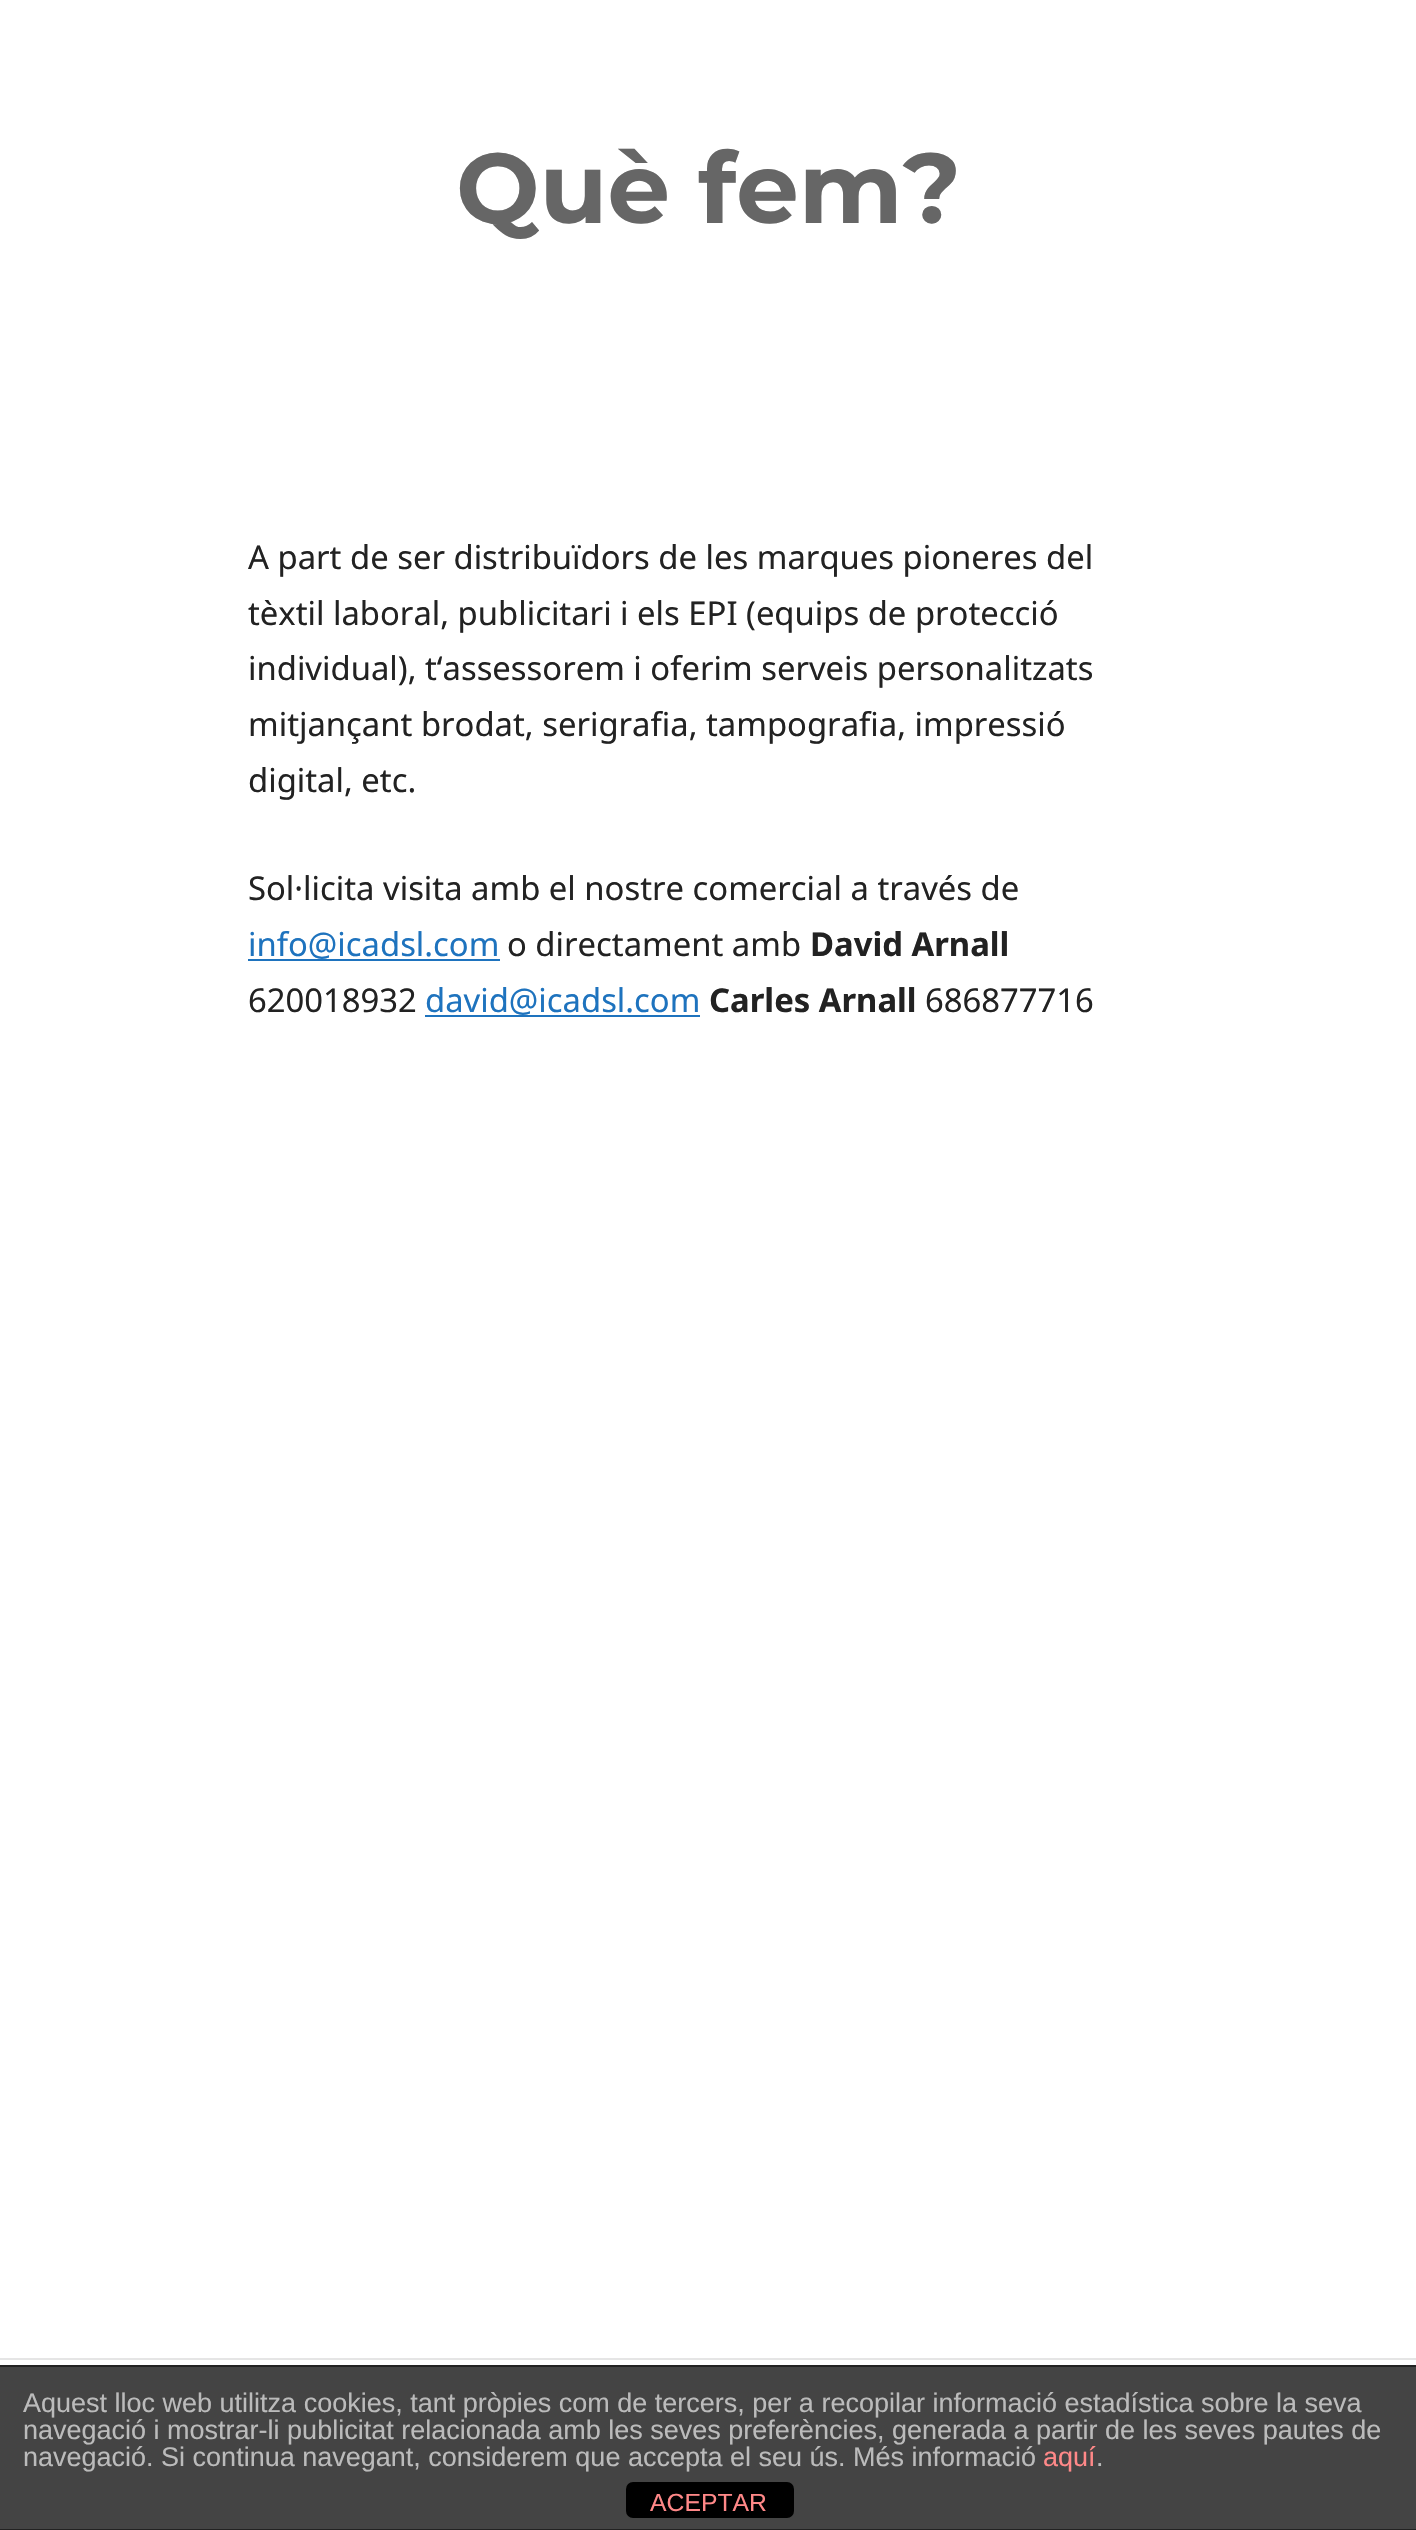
void draw(SkCanvas* c) {
SkPaint p;
p.setAntiAlias(true);
auto F=[&](const char* family, int weight, float size, bool italic = false){SkFontStyle style(weight, SkFontStyle::kNormal_Width,italic ? SkFontStyle::kItalic_Slant : SkFontStyle::kUpright_Slant);SkFont result(fontMgr->matchFamilyStyle(family, style), size);result.setSubpixel(true);return result;};
auto T=[&](const char* s, float x, float y, const SkFont& font){c->drawString(s, x, y, font, p);};
auto R=[&](float x, float y, float w, float h){c->drawRect(SkRect::MakeXYWH(x, y, w, h), p);};
auto Q=[&](float x, float y, float w, float h, float radius){c->drawRoundRect(SkRect::MakeXYWH(x, y, w, h), radius, radius, p);};
c->clear(0xffffffff);
auto f1 = F("Montserrat",100,99);
p.setColor(0xff666666);
T("Què fem?",456,223,f1);
auto f2 = F("Noto Sans",400,32.8);
p.setColor(0xff222222);
T("A part de ser distribuïdors de les marques pioneres del",248,569,f2);
T("tèxtil laboral, publicitari i els EPI (equips de protecció",248,625,f2);
T("individual), t‘assessorem i oferim serveis personalitzats",248,680,f2);
T("mitjançant brodat, serigrafia, tampografia, impressió",248,736,f2);
T("digital, etc.",248,792,f2);
T("Sol·licita visita amb el nostre comercial a través de",248,900,f2);
p.setColor(0xff1e73be);
T("info@icadsl.com",248,956,f2);
R(248,959,252,2);
p.setColor(0xff222222);
T("o directament amb",507,956,f2);
auto f3 = F("Noto Sans",700,32.8);
T("David Arnall",810,956,f3);
T("620018932",248,1012,f2);
p.setColor(0xff1e73be);
T("david@icadsl.com",425,1012,f2);
R(425,1015,275,2);
p.setColor(0xff222222);
T("Carles Arnall",709,1012,f3);
T("686877716",925,1012,f2);
p.setColor(0xffe5e5e5);
R(0,2358,1416,2);
p.setColor(0xff444444);
R(0,2367,1416,162);
p.setColor(0xff222222);
R(0,2365,1416,2);
R(0,2529,1416,1);
auto f4 = F("Liberation Sans",400,27);
p.setColor(0xffbbbbbb);
T("Aquest lloc web utilitza cookies, tant pròpies com de tercers, per a recopilar informació estadística sobre la seva",23,2412,f4);
T("navegació i mostrar-li publicitat relacionada amb les seves preferències, generada a partir de les seves pautes de",23,2439,f4);
T("navegació. Si continua navegant, considerem que accepta el seu ús. Més informació",23,2466,f4);
p.setColor(0xffff8888);
T("aquí",1043,2466,f4);
p.setColor(0xffbbbbbb);
T(".",1096,2466,f4);
p.setColor(0xff000000);
Q(626,2482,168,36,7);
auto f5 = F("Liberation Sans",400,24.75);
p.setColor(0xffff8888);
T("ACEPTAR",650,2511,f5);
}
